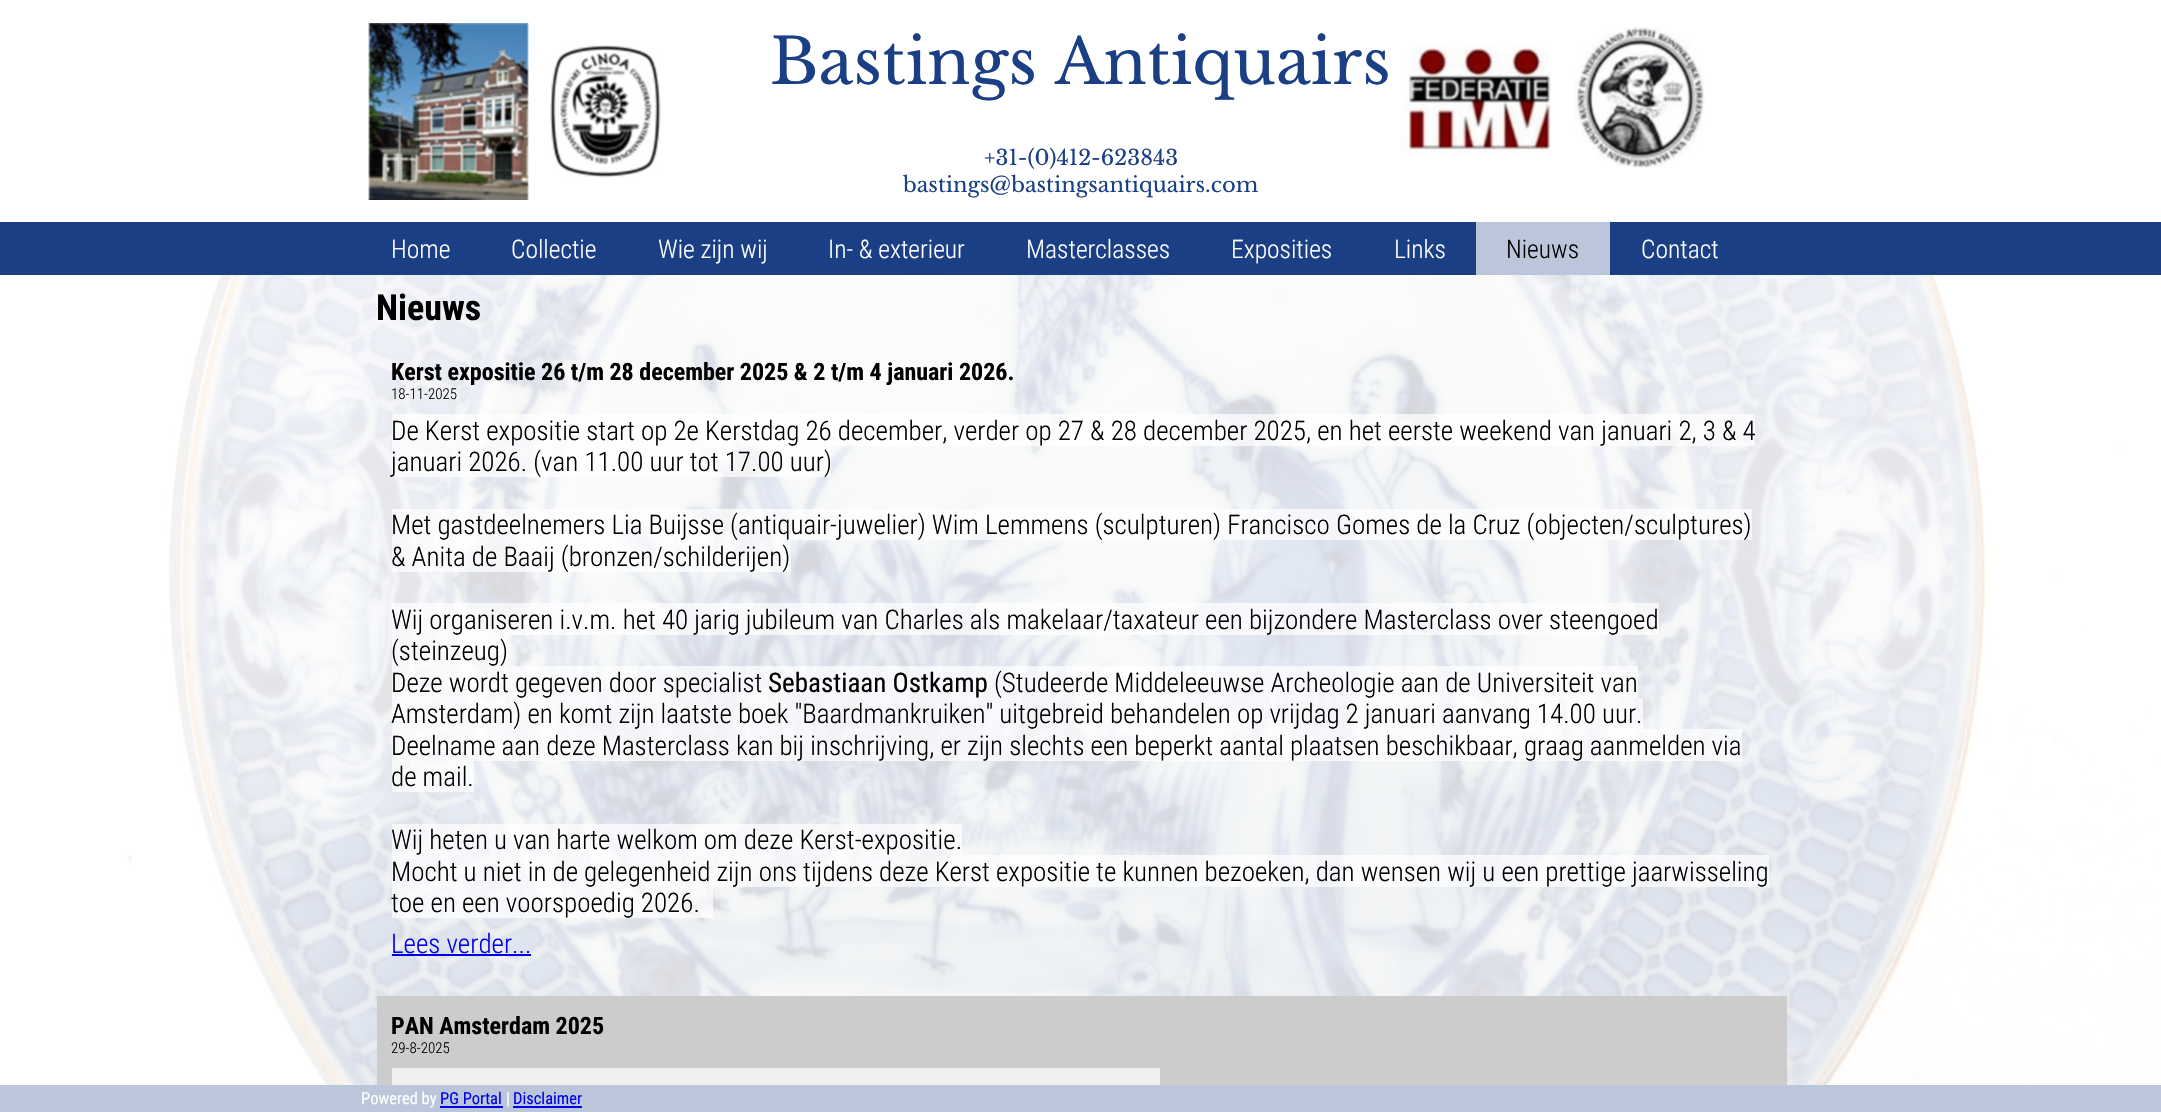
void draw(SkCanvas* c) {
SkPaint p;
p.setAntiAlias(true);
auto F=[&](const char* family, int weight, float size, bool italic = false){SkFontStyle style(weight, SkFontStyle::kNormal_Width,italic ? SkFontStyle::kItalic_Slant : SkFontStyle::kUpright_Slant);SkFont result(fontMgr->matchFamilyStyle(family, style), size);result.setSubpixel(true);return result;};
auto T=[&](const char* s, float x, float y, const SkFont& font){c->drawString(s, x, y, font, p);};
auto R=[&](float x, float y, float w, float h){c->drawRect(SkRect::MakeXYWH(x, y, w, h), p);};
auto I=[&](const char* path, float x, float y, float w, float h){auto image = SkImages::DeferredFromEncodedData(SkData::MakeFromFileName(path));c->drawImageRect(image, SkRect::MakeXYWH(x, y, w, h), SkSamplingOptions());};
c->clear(0xffffffff);
I("1.png",0,275,2161,810);
I("2.png",368,23,161,177);
I("3.png",550,45,111,133);
auto f1 = F("Libre Baskerville",400,63);
p.setColor(0xff1a3f85);
T("Bastings Antiquairs",770,84,f1);
auto f2 = F("Libre Baskerville",400,21);
T("+31-(0)412-623843",984,165,f2);
T("bastings@bastingsantiquairs.com",903,192,f2);
I("4.png",1400,44,151,111);
I("5.png",1574,27,131,141);
R(0,222,2161,53);
auto f3 = F("Roboto Condensed",300,25.5);
p.setColor(0xffffffff);
T("Home",391,258,f3);
T("Collectie",511,258,f3);
T("Wie zijn wij",658,258,f3);
T("In- & exterieur",828,258,f3);
T("Masterclasses",1026,258,f3);
T("Exposities",1231,258,f3);
T("Links",1394,258,f3);
p.setColor(0xffbbc6db);
R(1476,222,134,53);
p.setColor(0xff000000);
T("Nieuws",1506,258,f3);
p.setColor(0xffffffff);
T("Contact",1641,258,f3);
p.setColor(0xb3ffffff);
R(0,275,2161,810);
auto f4 = F("Roboto Condensed",700,36);
p.setColor(0xff000000);
T("Nieuws",376,320,f4);
auto f5 = F("Roboto Condensed",700,24);
T("Kerst expositie 26 t/m 28 december 2025 & 2 t/m 4 januari 2026.",391,380,f5);
auto f6 = F("Roboto Condensed",300,15);
T("18-11-2025",391,399,f6);
p.setColor(0xb3ffffff);
R(392,414,1363,32);
auto f7 = F("Roboto Condensed",300,27);
p.setColor(0xff000000);
T("De Kerst expositie start op 2e Kerstdag 26 december, verder op 27 & 28 december 2025, en het eerste weekend van januari 2, 3 & 4",391,440,f7);
p.setColor(0xb3ffffff);
R(392,446,439,31);
p.setColor(0xff000000);
T("januari 2026. (van 11.00 uur tot 17.00 uur)",391,471,f7);
p.setColor(0xb3ffffff);
R(392,509,1360,31);
R(392,540,399,32);
p.setColor(0xff000000);
T("Met gastdeelnemers Lia Buijsse (antiquair-juwelier) Wim Lemmens (sculpturen) Francisco Gomes de la Cruz (objecten/sculptures)",391,534,f7);
T("& Anita de Baaij (bronzen/schilderijen)",391,566,f7);
p.setColor(0xb3ffffff);
R(392,603,1267,32);
p.setColor(0xff000000);
T("Wij organiseren i.v.m. het 40 jarig jubileum van Charles als makelaar/taxateur een bijzondere Masterclass over steengoed",391,629,f7);
p.setColor(0xb3ffffff);
R(392,635,117,31);
p.setColor(0xff000000);
T("(steinzeug)",391,660,f7);
p.setColor(0xb3ffffff);
R(392,666,376,32);
p.setColor(0xff000000);
T("Deze wordt gegeven door specialist",391,692,f7);
p.setColor(0xb3ffffff);
R(768,666,221,32);
auto f8 = F("Roboto Condensed",400,27);
p.setColor(0xff000000);
T("Sebastiaan Ostkamp",768,692,f8);
p.setColor(0xb3ffffff);
R(989,666,649,32);
R(392,698,1251,31);
p.setColor(0xff000000);
T("(Studeerde Middeleeuwse Archeologie aan de Universiteit van",994,692,f7);
T("Amsterdam) en komt zijn laatste boek \"Baardmankruiken\" uitgebreid behandelen op vrijdag 2 januari aanvang 14.00 uur.",391,723,f7);
p.setColor(0xb3ffffff);
R(392,729,1350,32);
p.setColor(0xff000000);
T("Deelname aan deze Masterclass kan bij inschrijving, er zijn slechts een beperkt aantal plaatsen beschikbaar, graag aanmelden via",391,755,f7);
p.setColor(0xb3ffffff);
R(392,761,82,31);
p.setColor(0xff000000);
T("de mail.",391,786,f7);
p.setColor(0xb3ffffff);
R(392,824,570,31);
p.setColor(0xff000000);
T("Wij heten u van harte welkom om deze Kerst-expositie.",391,849,f7);
p.setColor(0xb3ffffff);
R(392,855,1377,32);
p.setColor(0xff000000);
T("Mocht u niet in de gelegenheid zijn ons tijdens deze Kerst expositie te kunnen bezoeken, dan wensen wij u een prettige jaarwisseling",391,881,f7);
p.setColor(0xb3ffffff);
R(392,887,321,31);
p.setColor(0xff000000);
T("toe en een voorspoedig 2026.",391,912,f7);
p.setColor(0xff0000ee);
T("Lees verder...",391,953,f7);
R(392,954,139,2);
p.setColor(0xffcccccc);
R(377,996,1410,89);
p.setColor(0xff000000);
T("PAN Amsterdam 2025",391,1034,f5);
T("29-8-2025",391,1053,f6);
p.setColor(0xfff0f0f0);
R(392,1068,768,17);
p.setColor(0xffbbc6db);
R(0,1085,2161,27);
auto f9 = F("Roboto Condensed",400,16.5);
p.setColor(0xffffffff);
T("Powered by",361,1104,f9);
p.setColor(0xff0000ee);
T("PG Portal",440,1104,f9);
R(440,1106,63,2);
p.setColor(0xffffffff);
T("|",506,1104,f9);
p.setColor(0xff0000ee);
T("Disclaimer",513,1104,f9);
R(513,1106,69,2);
}
